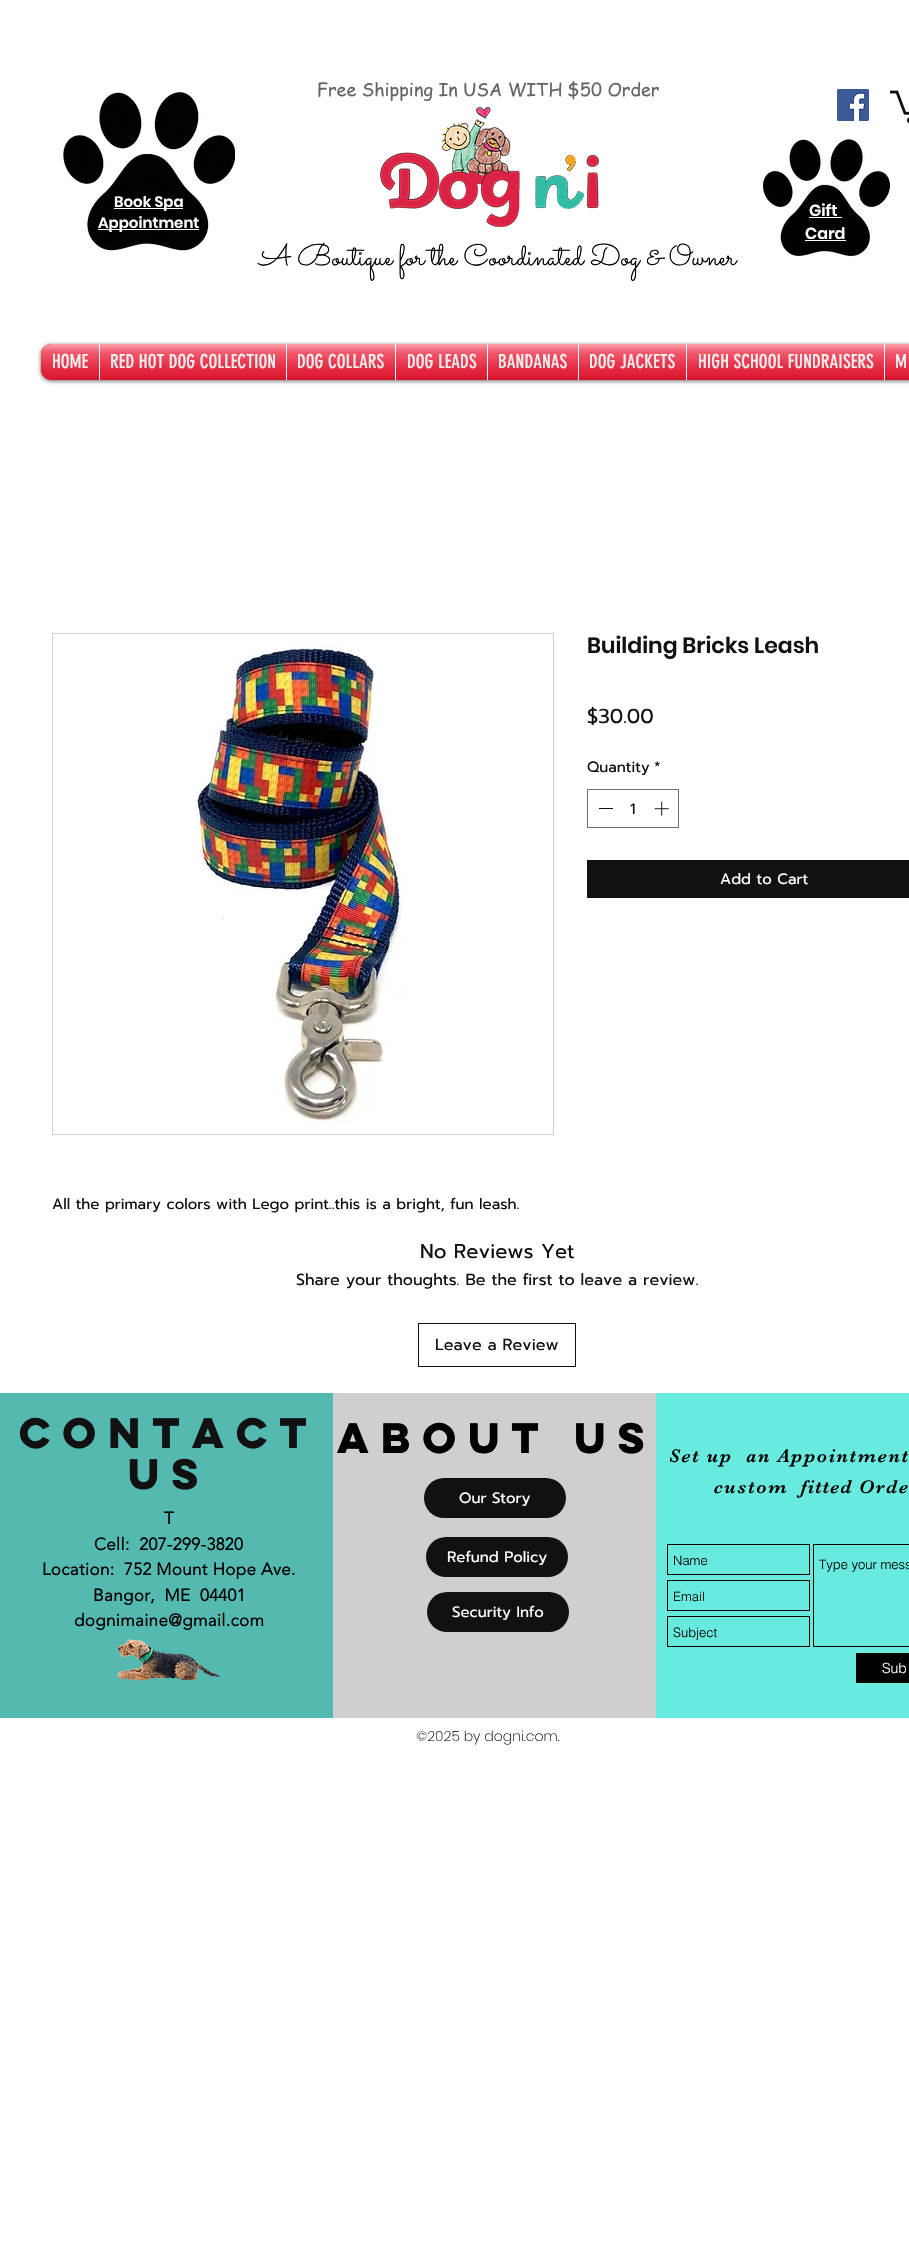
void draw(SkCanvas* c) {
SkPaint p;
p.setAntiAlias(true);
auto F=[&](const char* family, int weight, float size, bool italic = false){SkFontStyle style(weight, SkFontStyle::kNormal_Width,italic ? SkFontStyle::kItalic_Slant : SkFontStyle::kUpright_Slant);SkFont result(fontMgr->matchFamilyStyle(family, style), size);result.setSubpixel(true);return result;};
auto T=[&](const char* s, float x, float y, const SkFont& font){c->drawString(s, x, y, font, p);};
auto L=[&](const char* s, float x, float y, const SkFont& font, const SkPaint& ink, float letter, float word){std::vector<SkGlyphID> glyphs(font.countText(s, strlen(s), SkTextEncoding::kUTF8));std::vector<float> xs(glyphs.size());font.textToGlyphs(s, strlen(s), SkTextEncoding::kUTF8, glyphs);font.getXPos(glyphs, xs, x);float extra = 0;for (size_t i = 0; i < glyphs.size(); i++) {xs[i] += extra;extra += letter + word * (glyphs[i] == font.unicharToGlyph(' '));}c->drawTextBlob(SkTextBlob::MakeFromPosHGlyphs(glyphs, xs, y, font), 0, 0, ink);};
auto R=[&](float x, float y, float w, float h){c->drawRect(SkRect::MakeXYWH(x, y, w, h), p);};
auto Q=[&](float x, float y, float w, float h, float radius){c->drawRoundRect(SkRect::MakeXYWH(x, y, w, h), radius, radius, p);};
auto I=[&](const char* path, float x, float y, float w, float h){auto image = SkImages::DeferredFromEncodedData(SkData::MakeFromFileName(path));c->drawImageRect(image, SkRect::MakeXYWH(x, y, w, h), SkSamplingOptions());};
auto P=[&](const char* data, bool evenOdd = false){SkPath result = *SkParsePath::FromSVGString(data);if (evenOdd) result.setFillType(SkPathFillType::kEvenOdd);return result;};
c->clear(0xffffffff);
I("1.png",63,92,172,159);
auto f1 = F("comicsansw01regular",400,18);
p.setColor(0xff686369);
T("Free Shipping In USA WITH $50 Order",317,96,f1);
I("2.png",837,89,32,32);
I("3.png",890,90,19,33);
p.setColor(0xffffffff);
R(114,208,69,1);
auto f2 = F("Poppins",600,15);
T("Book Spa",114,207,f2);
R(98,229,101,1);
T("Appointment",98,228,f2);
I("4.png",380,106,219,122);
I("5.png",762,139,128,118);
auto f3 = F("Poppins",600,16);
T("Gift",809,216,f3);
R(809,217,33,1);
T("Card",805,239,f3);
R(805,240,41,1);
auto f4 = F("Sacramento",400,30);
p.setColor(0xff000000);
T("A Boutique for the Coordinated Dog & Owner",259,265,f4);
p.setColor(0x99000000);
p.setMaskFilter(SkMaskFilter::MakeBlur(kNormal_SkBlurStyle, 2));
c->drawRoundRect(SkRect::MakeXYWH(41,345,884,36),10,10,p);
p.setMaskFilter(nullptr);
I("6.png",41,344,10,36);
I("7.png",41,353,10,27);
p.setColor(0xfffb0827);
c->drawPath(P("M51 344h48v36h-48c-5.5 0-10-4.5-10-10v-16c0-5.5 4.5-10 10-10z"),p);
auto f5 = F("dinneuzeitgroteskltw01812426",400,19);
p.setColor(0xffffffff);
T("HOME",52,368,f5);
I("8.png",41,344,58,36);
I("9.png",41,346,58,34);
p.setColor(0xfffb0827);
R(100,344,186,36);
p.setColor(0xffffffff);
R(99,344,1,36);
T("RED HOT DOG COLLECTION",110,368,f5);
I("10.png",100,344,186,36);
I("11.png",100,346,186,34);
p.setColor(0xfffb0827);
R(287,344,108,36);
p.setColor(0xffffffff);
R(286,344,1,36);
T("DOG COLLARS",297,368,f5);
I("12.png",287,344,108,36);
I("13.png",287,346,108,34);
p.setColor(0xfffb0827);
R(396,344,91,36);
p.setColor(0xffffffff);
R(395,344,1,36);
T("DOG LEADS",407,368,f5);
I("14.png",396,344,91,36);
I("15.png",396,346,91,34);
p.setColor(0xfffb0827);
R(488,344,90,36);
p.setColor(0xffffffff);
R(487,344,1,36);
T("BANDANAS",498,368,f5);
I("16.png",488,344,90,36);
I("17.png",488,346,90,34);
p.setColor(0xfffb0827);
R(579,344,107,36);
p.setColor(0xffffffff);
R(578,344,1,36);
T("DOG JACKETS",589,368,f5);
I("18.png",579,344,107,36);
I("19.png",579,346,107,34);
p.setColor(0xfffb0827);
R(687,344,197,36);
p.setColor(0xffffffff);
R(686,344,1,36);
T("HIGH SCHOOL FUNDRAISERS",698,368,f5);
I("20.png",687,344,197,36);
I("21.png",687,346,197,34);
p.setColor(0xfffb0827);
R(885,344,24,36);
p.setColor(0xffffffff);
R(884,344,1,36);
T("M",895,368,f5);
I("22.png",885,344,24,36);
I("23.png",885,346,24,34);
auto f6 = F("Poppins",600,22);
p.setColor(0xff101110);
T("Building Bricks Leash",587,653,f6);
auto f7 = F("Prompt",400,20);
T("$30.00",587,723,f7);
auto f8 = F("Prompt",400,15);
T("Quantity",587,772,f8);
T("*",654,772,f8);
p.setStroke(true);
p.setStrokeWidth(1);
p.setColor(0xff707070);
c->drawRect(SkRect::MakeXYWH(587.5,789.5,91,38),p);
p.setStroke(false);
p.setColor(0xff101110);
R(599,808,14,1);
T("1",630,814,f8);
I("24.png",654,801,15,15);
R(587,860,322,38);
p.setColor(0xffffffff);
T("Add to Cart",720,884,f8);
p.setStroke(true);
p.setColor(0xffcfcfcf);
c->drawRect(SkRect::MakeXYWH(52.5,633.5,501,501),p);
I("25.png",195,644,209,480);
p.setStroke(false);
p.setColor(0xff101110);
T("All the primary colors with Lego print..this is a bright, fun leash.",52,1209,f8);
T("No Reviews Yet",420,1258,f7);
auto f9 = F("Prompt",400,16);
T("Share your thoughts. Be the first to leave a review.",296,1285,f9);
p.setStroke(true);
c->drawRect(SkRect::MakeXYWH(418.5,1323.5,157,43),p);
p.setStroke(false);
T("Leave a Review",435,1350,f9);
p.setColor(0xff54b9b0);
R(0,1393,333,325);
auto f10 = F("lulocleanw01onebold",700,38);
p.setColor(0xff101110);
L("CONTACT",19,1448,f10,p,3.75,0);
L("US",128,1489,f10,p,3.75,0);
auto f11 = F("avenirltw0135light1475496",700,17);
p.setColor(0xff000000);
L("T",164,1524,f11,p,.35,0);
L("Cell:  207-299-3820",94,1550,f11,p,.35,0);
L("Location:  752 Mount Hope Ave.",42,1575,f11,p,.35,0);
L("Bangor,  ME  04401",93,1601,f11,p,.35,0);
L("dognimaine@gmail.com",74,1626,f11,p,.35,0);
I("26.png",117,1639,103,42);
p.setColor(0xffcfcfcf);
R(333,1393,323,325);
p.setColor(0xff000000);
L("About US",337,1453,f10,p,3.75,0);
p.setColor(0xff101110);
Q(424,1478,142,40,20);
p.setColor(0xffffffff);
T("Our Story",459,1503,f8);
p.setColor(0xff101110);
Q(426,1537,142,40,20);
p.setColor(0xffffffff);
T("Refund Policy",447,1562,f8);
p.setColor(0xff101110);
Q(427,1592,142,40,20);
p.setColor(0xffffffff);
T("Security Info",452,1617,f8);
p.setColor(0xff68eade);
R(656,1393,253,325);
auto f12 = F("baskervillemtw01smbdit",400,19);
p.setColor(0xff000000);
L("Set up  an Appointment",669,1462,f12,p,1.9,0);
L("custom",714,1493,f12,p,1.9,0);
L("fitted",801,1493,f12,p,1.25,0);
L("Orde",859,1493,f12,p,1.9,0);
p.setStroke(true);
c->drawRect(SkRect::MakeXYWH(667.5,1544.5,142,30),p);
auto f13 = F("helvetica",300,13);
p.setStroke(false);
T("Name",673,1565,f13);
p.setStroke(true);
c->drawRect(SkRect::MakeXYWH(813.5,1544.5,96,102),p);
p.setStroke(false);
T("Type your mess",819,1569,f13);
p.setStroke(true);
c->drawRect(SkRect::MakeXYWH(667.5,1580.5,142,30),p);
p.setStroke(false);
T("Email",673,1601,f13);
p.setStroke(true);
c->drawRect(SkRect::MakeXYWH(667.5,1616.5,142,30),p);
p.setStroke(false);
T("Subject",673,1637,f13);
R(856,1653,53,30);
auto f14 = F("helvetica",300,14);
p.setColor(0xffffffff);
T("Sub",882,1673,f14);
auto f15 = F("Poppins",200,14);
p.setColor(0xff101110);
T("©2025 by dogni.com.",416,1741,f15);
}
